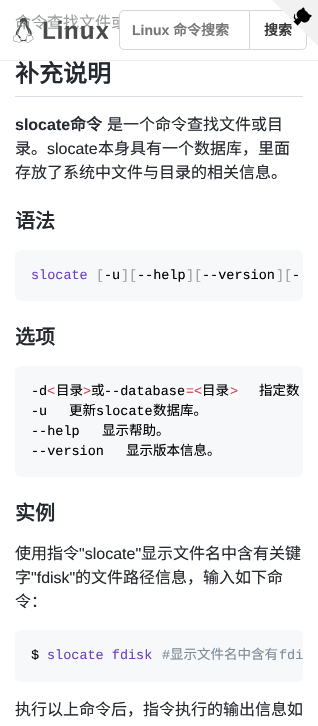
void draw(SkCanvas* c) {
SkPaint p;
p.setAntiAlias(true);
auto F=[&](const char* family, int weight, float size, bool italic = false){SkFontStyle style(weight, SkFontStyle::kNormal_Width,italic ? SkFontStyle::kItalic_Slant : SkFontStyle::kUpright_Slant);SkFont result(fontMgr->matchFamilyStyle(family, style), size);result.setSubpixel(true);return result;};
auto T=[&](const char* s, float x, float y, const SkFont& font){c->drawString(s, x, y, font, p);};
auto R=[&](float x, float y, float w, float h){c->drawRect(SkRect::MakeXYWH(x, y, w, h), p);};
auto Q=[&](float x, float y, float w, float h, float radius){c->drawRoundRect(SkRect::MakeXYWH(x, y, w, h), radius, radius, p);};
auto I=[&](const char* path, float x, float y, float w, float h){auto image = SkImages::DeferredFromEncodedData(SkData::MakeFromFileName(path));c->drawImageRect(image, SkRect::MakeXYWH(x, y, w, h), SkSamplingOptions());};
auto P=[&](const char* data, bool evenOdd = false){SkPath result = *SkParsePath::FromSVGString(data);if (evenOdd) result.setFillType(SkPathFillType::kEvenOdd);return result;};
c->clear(0xffffffff);
auto f1 = F("Noto Sans CJK SC",400,16);
p.setColor(0xff9c9fa1);
T("命令查找文件或",15,28,f1);
p.setColor(0xffffffff);
c->drawPath(P("M124 10.5h125.5v39h-125.5c-2.5 0-4.5-2-4.5-4.5v-30c0-2.5 2-4.5 4.5-4.5z"),p);
p.setStroke(true);
p.setStrokeWidth(1);
p.setColor(0xffd5d5d5);
c->drawPath(P("M124 10.5h125.5v39h-125.5c-2.5 0-4.5-2-4.5-4.5v-30c0-2.5 2-4.5 4.5-4.5z"),p);
p.setStroke(false);
p.setColor(0xffffffff);
c->drawPath(P("M249.5 10.5h52.5c2.5 0 4.5 2 4.5 4.5v30c0 2.5-2 4.5-4.5 4.5h-52.5z"),p);
p.setStroke(true);
p.setColor(0xffd5d5d5);
c->drawPath(P("M249.5 10.5h52.5c2.5 0 4.5 2 4.5 4.5v30c0 2.5-2 4.5-4.5 4.5h-52.5z"),p);
auto f2 = F("Noto Sans CJK SC",700,14);
p.setStroke(false);
p.setColor(0xff333333);
T("搜索",264,35,f2);
I("1.png",272,0,46,46);
p.setColor(0xffd8dee4);
R(15,96,288,1);
auto f3 = F("Noto Sans CJK SC",700,24);
p.setColor(0xff24292f);
T("补充说明",15,82,f3);
auto f4 = F("Liberation Sans",700,16);
T("slocate",15,130,f4);
auto f5 = F("Noto Sans CJK SC",700,16);
T("命令",70,130,f5);
T("是一个命令查找文件或目",107,130,f1);
T("录。",15,154,f1);
auto f6 = F("Liberation Sans",400,16);
T("slocate",47,154,f6);
T("本身具有一个数据库，里面",98,154,f1);
T("存放了系统中文件与目录的相关信息。",15,178,f1);
auto f7 = F("Noto Sans CJK SC",700,20);
T("语法",15,228,f7);
p.setColor(0xfff6f8fa);
Q(15,250,288,51,6);
auto f8 = F("Liberation Mono",400,13.5);
p.setColor(0xff6f42c1);
T("slocate",31,279,f8);
p.setColor(0xff9c9fa1);
T("[",96,279,f8);
p.setColor(0xff000000);
T("-u",104,279,f8);
p.setColor(0xff9c9fa1);
T("][",121,279,f8);
p.setColor(0xff000000);
T("--help",137,279,f8);
p.setColor(0xff9c9fa1);
T("][",186,279,f8);
p.setColor(0xff000000);
T("--version",202,279,f8);
p.setColor(0xff9c9fa1);
T("][",276,279,f8);
p.setColor(0xff000000);
T("-",292,279,f8);
p.setColor(0xff24292f);
T("选项",15,344,f7);
p.setColor(0xfff6f8fa);
Q(15,366,288,111,6);
p.setColor(0xff000000);
T("-d",31,395,f8);
p.setColor(0xfffbfcfd);
R(47,384,9,15);
p.setColor(0xffd73a49);
T("<",47,395,f8);
auto f9 = F("Noto Sans CJK SC",400,13.5);
p.setColor(0xff000000);
T("目录",56,395,f9);
p.setColor(0xfffbfcfd);
R(83,384,8,15);
p.setColor(0xffd73a49);
T(">",83,395,f8);
p.setColor(0xff000000);
T("或",91,395,f9);
T("--database",104,395,f8);
p.setColor(0xfffbfcfd);
R(186,384,16,15);
p.setColor(0xffd73a49);
T("=<",186,395,f8);
p.setColor(0xff000000);
T("目录",202,395,f9);
p.setColor(0xfffbfcfd);
R(230,384,8,15);
p.setColor(0xffd73a49);
T(">",230,395,f8);
p.setColor(0xff000000);
T("指定数",259,395,f9);
T("-u",31,415,f8);
T("更新",69,415,f9);
T("slocate",96,415,f8);
T("数据库。",153,415,f9);
T("--help",31,435,f8);
T("显示帮助。",102,435,f9);
T("--version",31,455,f8);
T("显示版本信息。",126,455,f9);
p.setColor(0xff24292f);
T("实例",15,520,f7);
T("使用指令",15,559,f1);
T("\"slocate\"",79,559,f6);
T("显示文件名中含有关键",141,559,f1);
T("字",15,583,f1);
T("\"fdisk\"",31,583,f6);
T("的文件路径信息，输入如下命",75,583,f1);
T("令：",15,607,f1);
p.setColor(0xfff6f8fa);
Q(15,630,288,52,6);
p.setColor(0xff000000);
T("$",31,659,f8);
p.setColor(0xff6f42c1);
T("slocate fdisk",47,659,f8);
p.setColor(0xff7d8b99);
T("#",162,659,f8);
T("显示文件名中含有",170,659,f9);
T("fdi",279,659,f8);
p.setColor(0xff24292f);
T("执行以上命令后，指令执行的输出信息如",15,715,f1);
p.setColor(0xffeeeeee);
R(0,60,318,1);
I("2.png",13,17,96,26);
auto f10 = F("Liberation Sans",700,14);
p.setColor(0xff757575);
T("Linux",132,35,f10);
T("命令搜索",173,35,f2);
}
